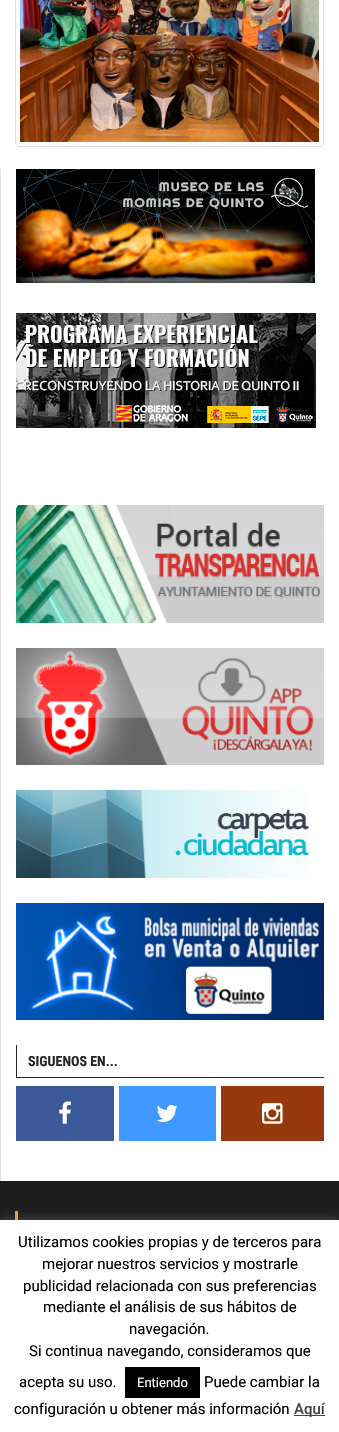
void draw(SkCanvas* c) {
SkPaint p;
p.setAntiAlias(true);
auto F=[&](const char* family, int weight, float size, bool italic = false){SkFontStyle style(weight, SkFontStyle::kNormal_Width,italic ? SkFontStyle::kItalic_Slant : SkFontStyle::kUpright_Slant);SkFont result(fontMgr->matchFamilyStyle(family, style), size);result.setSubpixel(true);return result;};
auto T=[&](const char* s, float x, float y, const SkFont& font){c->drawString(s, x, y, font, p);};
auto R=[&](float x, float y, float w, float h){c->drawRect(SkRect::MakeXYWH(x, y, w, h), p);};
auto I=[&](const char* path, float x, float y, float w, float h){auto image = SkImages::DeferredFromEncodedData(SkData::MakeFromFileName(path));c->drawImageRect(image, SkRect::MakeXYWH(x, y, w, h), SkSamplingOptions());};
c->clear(0xffffffff);
p.setStroke(true);
p.setStrokeWidth(1);
p.setColor(0xffdddddd);
c->drawRoundRect(SkRect::MakeXYWH(15.5,-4.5,308,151),3.5,3.5,p);
I("1.png",20,0,299,142);
p.setStroke(false);
p.setColor(0xffe3e3e3);
R(0,169,1,1012);
I("2.png",16,169,299,114);
I("3.png",16,313,300,115);
I("4.png",16,505,308,118);
I("5.png",16,648,308,117);
I("6.png",16,790,293,88);
I("7.png",16,903,308,117);
p.setColor(0xff262626);
R(16,1077,308,1);
R(16,1045,1,32);
auto f1 = F("Roboto Condensed",700,14);
T("SIGUENOS EN...",28,1066,f1);
p.setColor(0xff3b5998);
R(16,1086,98,55);
I("8.png",59,1101,12,23);
p.setColor(0xff4099ff);
R(119,1086,97,55);
I("9.png",156,1104,22,18);
p.setColor(0xff963a0d);
R(221,1086,103,55);
I("10.png",262,1103,21,21);
p.setColor(0xff1c1c1c);
R(0,1181,339,39);
p.setColor(0xffe1a92e);
R(15,1211,3,17);
p.setColor(0x4dacabab);
p.setMaskFilter(SkMaskFilter::MakeBlur(kNormal_SkBlurStyle, 5));
c->drawRect(SkRect::MakeXYWH(0,1219,339,212),p);
p.setMaskFilter(nullptr);
p.setColor(0xffffffff);
R(0,1220,339,212);
auto f2 = F("Roboto",400,15);
p.setColor(0xff000000);
T("Utilizamos cookies propias y de terceros para",18,1247,f2);
T("mejorar nuestros servicios y mostrarle",42,1269,f2);
T("publicidad relacionada con sus preferencias",23,1291,f2);
T("mediante el análisis de sus hábitos de",43,1312,f2);
T("navegación.",129,1334,f2);
T("Si continua navegando, consideramos que",29,1356,f2);
T("acepta su uso.",19,1387,f2);
R(125,1367,75,31);
auto f3 = F("Roboto",400,13);
p.setColor(0xffffffff);
T("Entiendo",137,1387,f3);
p.setColor(0xff000000);
T("Puede cambiar la",204,1387,f2);
T("configuración u obtener más información",14,1414,f2);
p.setColor(0xff444444);
R(294,1415,31,1);
auto f4 = F("Roboto",500,15);
T("Aquí",294,1414,f4);
}
